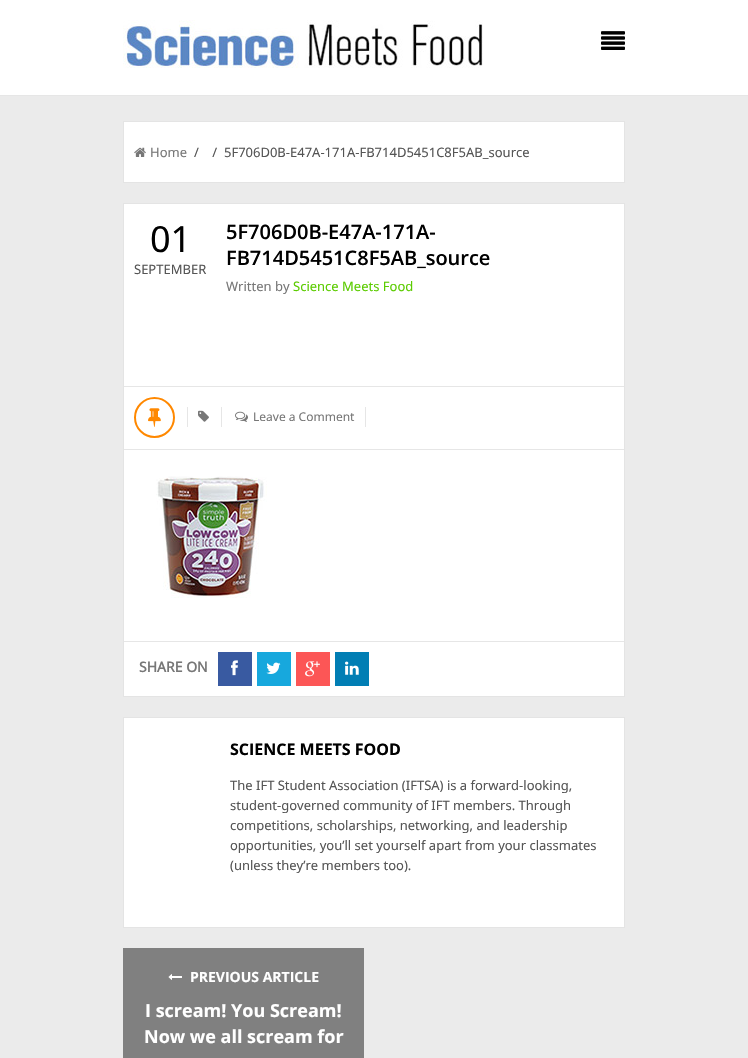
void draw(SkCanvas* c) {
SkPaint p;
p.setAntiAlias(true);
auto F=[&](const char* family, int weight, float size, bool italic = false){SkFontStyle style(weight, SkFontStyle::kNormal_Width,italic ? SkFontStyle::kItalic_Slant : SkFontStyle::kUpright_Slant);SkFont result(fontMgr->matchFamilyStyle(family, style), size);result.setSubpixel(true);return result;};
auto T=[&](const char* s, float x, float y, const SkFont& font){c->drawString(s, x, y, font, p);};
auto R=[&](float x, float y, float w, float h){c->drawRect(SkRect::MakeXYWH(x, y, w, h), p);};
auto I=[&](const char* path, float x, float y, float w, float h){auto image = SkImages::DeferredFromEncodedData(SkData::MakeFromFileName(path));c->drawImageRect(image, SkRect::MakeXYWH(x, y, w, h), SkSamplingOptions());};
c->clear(0xffebebeb);
p.setColor(0xffffffff);
R(0,0,748,95);
p.setColor(0xffe6e6e6);
R(0,95,748,1);
I("1.png",123,20,360,48);
I("2.png",601,31,24,19);
p.setColor(0xffffffff);
c->drawRect(SkRect::MakeXYWH(123.5,121.5,501,61),p);
p.setStroke(true);
p.setStrokeWidth(1);
p.setColor(0xffe4e4e4);
c->drawRect(SkRect::MakeXYWH(123.5,121.5,501,61),p);
I("3.png",134,147,12,10);
auto f1 = F("Noto Sans",400,13);
p.setStroke(false);
p.setColor(0xff777777);
T("Home",150,157,f1);
p.setColor(0xff555555);
T("/    /  5F706D0B-E47A-171A-FB714D5451C8F5AB_source",194,157,f1);
p.setColor(0xffffffff);
c->drawRect(SkRect::MakeXYWH(123.5,203.5,501,493),p);
p.setStroke(true);
p.setColor(0xffe4e4e4);
c->drawRect(SkRect::MakeXYWH(123.5,203.5,501,493),p);
p.setStroke(false);
p.setColor(0xffe6e6e6);
R(124,386,500,1);
auto f2 = F("Noto Sans",400,36);
p.setColor(0xff000000);
T("01",150,252,f2);
p.setColor(0xff555555);
T("SEPTEMBER",134,274,f1);
auto f3 = F("Open Sans",600,20);
p.setColor(0xff000000);
T("5F706D0B-E47A-171A-",226,239,f3);
T("FB714D5451C8F5AB_source",226,265,f3);
p.setColor(0xff777777);
T("Written by",226,291,f1);
p.setColor(0xff5bcc00);
T("Science Meets Food",293,291,f1);
p.setStroke(true);
p.setStrokeWidth(2);
p.setColor(0xffff8800);
c->drawCircle(154.5,417.5,19.5,p);
I("4.png",148,408,13,19);
p.setStroke(false);
p.setColor(0xffe6e6e6);
R(221,407,1,20);
R(187,407,1,20);
I("5.png",198,410,11,12);
R(365,407,1,20);
I("6.png",235,411,13,11);
auto f4 = F("Noto Sans",400,12);
p.setColor(0xff777777);
T("Leave a Comment",253,421,f4);
p.setColor(0xffe6e6e6);
R(124,449,500,1);
I("7.png",156,476,111,122);
R(124,641,500,1);
auto f5 = F("Noto Sans",700,14);
p.setColor(0xff777777);
T("SHARE ON",139,672,f5);
p.setColor(0xff395aa1);
R(218,652,34,34);
I("8.png",231,660,7,16);
p.setColor(0xff17a8dd);
R(257,652,34,34);
I("9.png",266,662,15,12);
p.setColor(0xfffc5656);
R(296,652,34,34);
I("10.png",305,661,15,16);
p.setColor(0xff017eb4);
R(335,652,34,34);
I("11.png",345,661,14,14);
p.setColor(0xffffffff);
c->drawRect(SkRect::MakeXYWH(123.5,717.5,501,210),p);
p.setStroke(true);
p.setStrokeWidth(1);
p.setColor(0xffe4e4e4);
c->drawRect(SkRect::MakeXYWH(123.5,717.5,501,210),p);
auto f6 = F("Open Sans",700,16);
p.setStroke(false);
p.setColor(0xff000000);
T("SCIENCE MEETS FOOD",230,755,f6);
p.setColor(0xff555555);
T("The IFT Student Association (IFTSA) is a forward-looking,",230,790,f1);
T("student-governed community of IFT members. Through",230,810,f1);
T("competitions, scholarships, networking, and leadership",230,830,f1);
T("opportunities, you’ll set yourself apart from your classmates",230,850,f1);
T("(unless they’re members too).",230,870,f1);
p.setColor(0xff808080);
R(123,948,241,110);
I("12.png",168,974,14,6);
auto f7 = F("Open Sans",700,14);
p.setColor(0xffffffff);
T("PREVIOUS ARTICLE",190,982,f7);
auto f8 = F("Open Sans",700,18);
T("I scream! You Scream!",145,1017,f8);
T("Now we all scream for",144,1043,f8);
}
